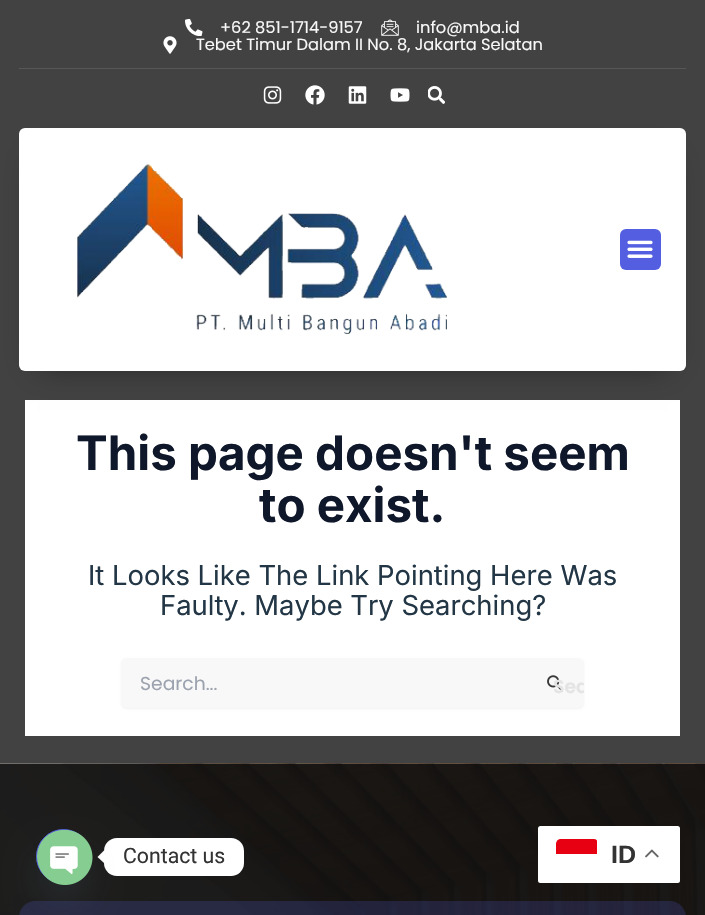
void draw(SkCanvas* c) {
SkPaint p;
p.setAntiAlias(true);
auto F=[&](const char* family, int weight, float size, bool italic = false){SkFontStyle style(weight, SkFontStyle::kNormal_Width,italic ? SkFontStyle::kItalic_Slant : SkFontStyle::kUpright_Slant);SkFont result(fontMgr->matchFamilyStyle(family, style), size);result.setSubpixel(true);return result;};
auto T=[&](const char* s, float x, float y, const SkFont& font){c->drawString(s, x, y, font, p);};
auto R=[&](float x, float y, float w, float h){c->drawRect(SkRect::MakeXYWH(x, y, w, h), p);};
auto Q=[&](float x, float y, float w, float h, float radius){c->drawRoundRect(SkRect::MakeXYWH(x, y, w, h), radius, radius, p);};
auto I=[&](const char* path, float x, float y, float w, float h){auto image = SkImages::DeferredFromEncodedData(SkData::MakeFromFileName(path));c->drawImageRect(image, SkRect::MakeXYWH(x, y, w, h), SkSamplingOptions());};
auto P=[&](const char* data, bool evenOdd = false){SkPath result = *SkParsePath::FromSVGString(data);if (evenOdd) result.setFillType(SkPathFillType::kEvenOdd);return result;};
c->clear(0xff424242);
p.setColor(0xff575757);
R(19,68,667,1);
I("1.png",185,19,18,17);
auto f1 = F("Poppins",400,16.25);
p.setColor(0xfff8f8f8);
T("+62 851-1714-9157",220,33,f1);
I("2.png",381,19,18,17);
T("info@mba.id",416,33,f1);
I("3.png",163,36,14,18);
T("Tebet Timur Dalam II No. 8, Jakarta Selatan",196,50,f1);
I("4.png",263,86,19,18);
I("5.png",305,85,20,20);
I("6.png",348,86,19,18);
I("7.png",390,88,20,14);
I("8.png",428,86,17,18);
p.setColor(0xffffffff);
R(25,400,655,336);
p.setColor(0x80000000);
p.setMaskFilter(SkMaskFilter::MakeBlur(kNormal_SkBlurStyle, 15.5));
c->drawRect(SkRect::MakeXYWH(38,159,630,206),p);
p.setMaskFilter(nullptr);
p.setColor(0xffffffff);
Q(19,128,667,243,6);
I("9.png",77,163,370,172);
p.setColor(0xff535ee0);
Q(620,229,41,41,6);
I("10.png",627,240,26,18);
auto f2 = F("Inter",700,47.5);
p.setColor(0xff0f172a);
T("This page doesn't seem",76,470,f2);
T("to exist.",259,522,f2);
auto f3 = F("Inter",400,27.4);
p.setColor(0xff223645);
T("It Looks Like The Link Pointing Here Was",88,585,f3);
T("Faulty. Maybe Try Searching?",160,615,f3);
p.setColor(0x0d000000);
p.setMaskFilter(SkMaskFilter::MakeBlur(kNormal_SkBlurStyle, 1));
c->drawRoundRect(SkRect::MakeXYWH(121,659,463,50),6,6,p);
p.setMaskFilter(nullptr);
p.setColor(0xfff8f8f8);
Q(121,658,463,50,6);
auto f4 = F("Poppins",400,18.75);
p.setColor(0xff9ca3af);
T("Search...",140,690,f4);
I("11.png",547,675,16,17);
c->save();
c->clipPath(P("M530.5 658h51c1.5 0 2.5 1 2.5 2.5v52c0 1.5-1 2.5-2.5 2.5h-51c-1.5 0-2.5-1-2.5-2.5v-52c0-1.5 1-2.5 2.5-2.5z"),true);
auto f5 = F("Poppins",600,18.75);
p.setColor(0xffe4e4e4);
T("Sea",553,693,f5);
c->restore();
I("12.png",0,763,705,152);
p.setColor(0x33535ee0);
Q(19,901,667,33,19);
p.setColor(0xffffffff);
Q(104,838,140,38,13);
c->drawPath(P("M104 850.5v12.5l-6.5-6z"),p);
p.setColor(0x2949687e);
p.setMaskFilter(SkMaskFilter::MakeBlur(kNormal_SkBlurStyle, 15));
c->drawRoundRect(SkRect::MakeXYWH(36,849,55,55),27.5,27.5,p);
p.setMaskFilter(nullptr);
p.setColor(0xff86cd91);
c->drawCircle(63.5,856.5,27,p);
p.setStroke(true);
p.setStrokeWidth(1);
p.setColor(0xff535ee0);
c->drawCircle(63.5,856.5,27,p);
I("13.png",38,830,55,55);
auto f6 = F("Roboto",400,21.25);
p.setStroke(false);
p.setColor(0xff333333);
T("Contact us",123,863,f6);
p.setColor(0xffffffff);
Q(538,826,142,57,2.5);
c->save();
c->clipPath(P("M560 839h34c2 0 4 2 4 4v23c0 2-2 4-4 4h-34c-2 0-4-2-4-4v-23c0-2 2-4 4-4z"),true);
p.setColor(0xffe70011);
c->drawPath(P("M560 839h37v16h-41v-12c0-2 2-4 4-4z"),p);
p.setColor(0xffffffff);
c->drawPath(P("M556 854h41v16h-37c-2 0-4-2-4-4z"),p);
c->restore();
auto f7 = F("Liberation Sans",700,25);
p.setColor(0xff333333);
T("ID",611,863,f7);
I("14.png",645,849,14,9);
}
